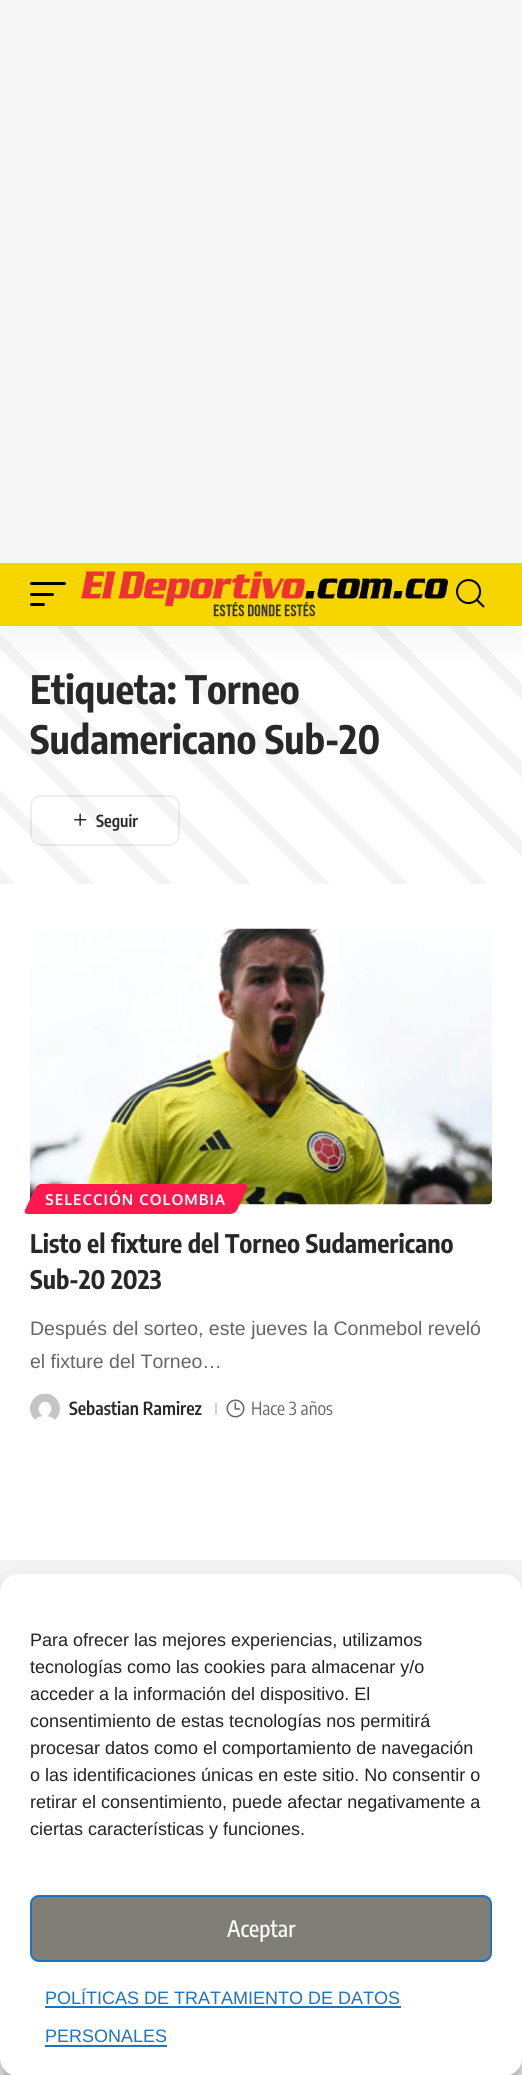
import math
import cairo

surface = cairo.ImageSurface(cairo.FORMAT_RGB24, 522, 2075)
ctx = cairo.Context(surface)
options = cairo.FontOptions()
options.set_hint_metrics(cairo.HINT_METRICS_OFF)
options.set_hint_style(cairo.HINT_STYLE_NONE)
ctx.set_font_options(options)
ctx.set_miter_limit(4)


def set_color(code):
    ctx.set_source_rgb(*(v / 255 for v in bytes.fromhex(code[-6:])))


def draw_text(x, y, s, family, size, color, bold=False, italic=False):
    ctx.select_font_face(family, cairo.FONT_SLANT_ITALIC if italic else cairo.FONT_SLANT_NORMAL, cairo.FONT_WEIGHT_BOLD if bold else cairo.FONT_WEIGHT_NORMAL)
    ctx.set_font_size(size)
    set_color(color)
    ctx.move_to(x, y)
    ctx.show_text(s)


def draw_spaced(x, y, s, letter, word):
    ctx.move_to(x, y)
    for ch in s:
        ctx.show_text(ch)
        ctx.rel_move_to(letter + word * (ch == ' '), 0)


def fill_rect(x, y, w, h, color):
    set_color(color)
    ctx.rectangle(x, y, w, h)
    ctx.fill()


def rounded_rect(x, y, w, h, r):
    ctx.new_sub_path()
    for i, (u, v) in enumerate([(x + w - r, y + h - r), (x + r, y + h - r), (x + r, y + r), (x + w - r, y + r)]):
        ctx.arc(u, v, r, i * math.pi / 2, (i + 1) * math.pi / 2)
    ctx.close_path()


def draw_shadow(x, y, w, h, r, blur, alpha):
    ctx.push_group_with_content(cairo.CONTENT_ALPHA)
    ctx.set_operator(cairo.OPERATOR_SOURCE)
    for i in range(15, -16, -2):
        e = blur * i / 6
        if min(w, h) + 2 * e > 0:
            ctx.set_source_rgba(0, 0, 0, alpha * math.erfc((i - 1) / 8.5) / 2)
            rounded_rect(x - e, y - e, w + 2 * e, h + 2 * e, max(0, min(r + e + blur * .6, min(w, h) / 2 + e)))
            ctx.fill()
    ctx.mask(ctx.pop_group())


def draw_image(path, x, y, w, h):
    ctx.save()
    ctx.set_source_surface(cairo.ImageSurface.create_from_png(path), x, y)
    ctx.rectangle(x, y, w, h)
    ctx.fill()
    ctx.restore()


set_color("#ffffff")
ctx.paint()
fill_rect(0, 0, 522, 563, "#f7f7f7")
rounded_rect(31, 796, 148, 49, 10)
set_color("#ededed")
ctx.stroke()
draw_image("assets/img3.png", 74, 813, 13, 13)
gradient = cairo.LinearGradient(66, 950, 458, 557)
gradient.add_color_stop_rgba(0, 0.157, 0.157, 0.157, 0.05)
gradient.add_color_stop_rgba(0.02, 0.157, 0.157, 0.157, 0.05)
gradient.add_color_stop_rgba(0.02, 0.157, 0.157, 0.157, 0)
gradient.add_color_stop_rgba(0.1, 0.157, 0.157, 0.157, 0)
gradient.add_color_stop_rgba(0.1, 0.157, 0.157, 0.157, 0.05)
gradient.add_color_stop_rgba(0.12, 0.157, 0.157, 0.157, 0.05)
gradient.add_color_stop_rgba(0.12, 0.157, 0.157, 0.157, 0)
gradient.add_color_stop_rgba(0.2, 0.157, 0.157, 0.157, 0)
gradient.add_color_stop_rgba(0.2, 0.157, 0.157, 0.157, 0.05)
gradient.add_color_stop_rgba(0.22, 0.157, 0.157, 0.157, 0.05)
gradient.add_color_stop_rgba(0.22, 0.157, 0.157, 0.157, 0)
gradient.add_color_stop_rgba(0.3, 0.157, 0.157, 0.157, 0)
gradient.add_color_stop_rgba(0.3, 0.157, 0.157, 0.157, 0.05)
gradient.add_color_stop_rgba(0.32, 0.157, 0.157, 0.157, 0.05)
gradient.add_color_stop_rgba(0.32, 0.157, 0.157, 0.157, 0)
gradient.add_color_stop_rgba(0.4, 0.157, 0.157, 0.157, 0)
gradient.add_color_stop_rgba(0.4, 0.157, 0.157, 0.157, 0.05)
gradient.add_color_stop_rgba(0.42, 0.157, 0.157, 0.157, 0.05)
gradient.add_color_stop_rgba(0.42, 0.157, 0.157, 0.157, 0)
gradient.add_color_stop_rgba(0.5, 0.157, 0.157, 0.157, 0)
gradient.add_color_stop_rgba(0.5, 0.157, 0.157, 0.157, 0.05)
gradient.add_color_stop_rgba(0.52, 0.157, 0.157, 0.157, 0.05)
gradient.add_color_stop_rgba(0.52, 0.157, 0.157, 0.157, 0)
gradient.add_color_stop_rgba(0.6, 0.157, 0.157, 0.157, 0)
gradient.add_color_stop_rgba(0.6, 0.157, 0.157, 0.157, 0.05)
gradient.add_color_stop_rgba(0.62, 0.157, 0.157, 0.157, 0.05)
gradient.add_color_stop_rgba(0.62, 0.157, 0.157, 0.157, 0)
gradient.add_color_stop_rgba(0.7, 0.157, 0.157, 0.157, 0)
gradient.add_color_stop_rgba(0.7, 0.157, 0.157, 0.157, 0.05)
gradient.add_color_stop_rgba(0.72, 0.157, 0.157, 0.157, 0.05)
gradient.add_color_stop_rgba(0.72, 0.157, 0.157, 0.157, 0)
gradient.add_color_stop_rgba(0.8, 0.157, 0.157, 0.157, 0)
gradient.add_color_stop_rgba(0.8, 0.157, 0.157, 0.157, 0.05)
gradient.add_color_stop_rgba(0.82, 0.157, 0.157, 0.157, 0.05)
gradient.add_color_stop_rgba(0.82, 0.157, 0.157, 0.157, 0)
gradient.add_color_stop_rgba(0.9, 0.157, 0.157, 0.157, 0)
gradient.add_color_stop_rgba(0.9, 0.157, 0.157, 0.157, 0.05)
gradient.add_color_stop_rgba(0.92, 0.157, 0.157, 0.157, 0.05)
gradient.add_color_stop_rgba(0.92, 0.157, 0.157, 0.157, 0)
gradient.add_color_stop_rgba(1, 0, 0, 0, 0)
ctx.set_source(gradient)
ctx.rectangle(0, 626, 522, 258)
ctx.fill()
ctx.save()
ctx.rectangle(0, 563, 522, 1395)
ctx.clip()
set_color("#000000")
draw_shadow(0, 569, 522, 63, 0, 22.5, 0.07)
ctx.restore()
fill_rect(0, 563, 522, 63, "#f7d600")
set_color("#000000")
rounded_rect(30, 582, 36, 3, 1.5)
ctx.fill()
rounded_rect(30, 593, 24, 3, 1.5)
ctx.fill()
rounded_rect(30, 603, 15, 3, 1.5)
ctx.fill()
draw_image("assets/img1.png", 81, 571, 367, 46)
draw_image("assets/img2.png", 456, 579, 29, 29)
draw_text(30, 704, "Etiqueta: Torneo", "Encode Sans Condensed", 39, "#282828", bold=True)
draw_text(30, 754, "Sudamericano Sub-20", "Encode Sans Condensed", 39, "#282828", bold=True)
draw_text(96, 827, "Seguir", "Encode Sans Condensed SemiBold", 16.5, "#282828")
draw_image("assets/img4.png", 30, 928, 462, 277)
set_color("#ff184e")
ctx.new_path()
ctx.move_to(41, 1184)
ctx.line_to(244, 1184)
ctx.curve_to(247, 1184, 248, 1186, 247, 1189)
ctx.line_to(237, 1210)
ctx.curve_to(236, 1212, 233, 1214, 230, 1214)
ctx.line_to(28, 1214)
ctx.curve_to(25, 1214, 24, 1212, 25, 1210)
ctx.line_to(35, 1189)
ctx.curve_to(36, 1186, 39, 1184, 41, 1184)
ctx.close_path()
ctx.fill()
ctx.select_font_face("Oxygen", cairo.FONT_SLANT_NORMAL, cairo.FONT_WEIGHT_BOLD)
ctx.set_font_size(15)
set_color("#ffffff")
draw_spaced(45, 1205, "SELECCIÓN COLOMBIA", 1, 0)
draw_text(30, 1253, "Listo el fixture del Torneo Sudamericano", "Encode Sans Condensed", 25.5, "#282828", bold=True)
draw_text(30, 1289, "Sub-20 2023", "Encode Sans Condensed", 25.5, "#282828", bold=True)
draw_text(30, 1335, "Después del sorteo, este jueves la Conmebol reveló", "Liberation Sans", 19.5, "#666666")
draw_text(30, 1368, "el fixture del Torneo…", "Liberation Sans", 19.5, "#666666")
draw_image("assets/img5.png", 30, 1393, 30, 27)
draw_text(69, 1415, "Sebastian Ramirez", "Encode Sans Condensed SemiBold", 18, "#282828")
fill_rect(215, 1403, 2, 12, "#d1d1d1")
draw_image("assets/img6.png", 226, 1399, 19, 19)
draw_text(251, 1415, "Hace 3 años", "Encode Sans Condensed", 18, "#666666")
fill_rect(0, 1560, 522, 32, "#f5f5f5")
set_color("#000000")
draw_shadow(0, 1583, 522, 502, 18, 4.5, 0.23)
draw_shadow(0, 1589, 522, 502, 18, 15, 0.19)
set_color("#ffffff")
rounded_rect(0, 1574, 522, 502, 18)
ctx.fill()
draw_text(30, 1646, "Para ofrecer las mejores experiencias, utilizamos", "Liberation Sans", 18, "#222222")
draw_text(30, 1673, "tecnologías como las cookies para almacenar y/o", "Liberation Sans", 18, "#222222")
draw_text(30, 1700, "acceder a la información del dispositivo. El", "Liberation Sans", 18, "#222222")
draw_text(30, 1727, "consentimiento de estas tecnologías nos permitirá", "Liberation Sans", 18, "#222222")
draw_text(30, 1754, "procesar datos como el comportamiento de navegación", "Liberation Sans", 18, "#222222")
draw_text(30, 1781, "o las identificaciones únicas en este sitio. No consentir o", "Liberation Sans", 18, "#222222")
draw_text(30, 1808, "retirar el consentimiento, puede afectar negativamente a", "Liberation Sans", 18, "#222222")
draw_text(30, 1835, "ciertas características y funciones.", "Liberation Sans", 18, "#222222")
set_color("#7f7f77")
rounded_rect(31, 1896, 460, 65, 8)
ctx.fill_preserve()
set_color("#1e73be")
ctx.stroke()
draw_text(227, 1937, "Aceptar", "Encode Sans Condensed Medium", 22.5, "#ffffff")
draw_text(45, 2004, "POLÍTICAS DE TRATAMIENTO DE DATOS", "Liberation Sans", 18, "#1e73be")
fill_rect(45, 2006, 356, 2, "#1e73be")
draw_text(45, 2042, "PERSONALES", "Liberation Sans", 18, "#1e73be")
fill_rect(45, 2045, 122, 2, "#1e73be")
surface.write_to_png("output.png")
